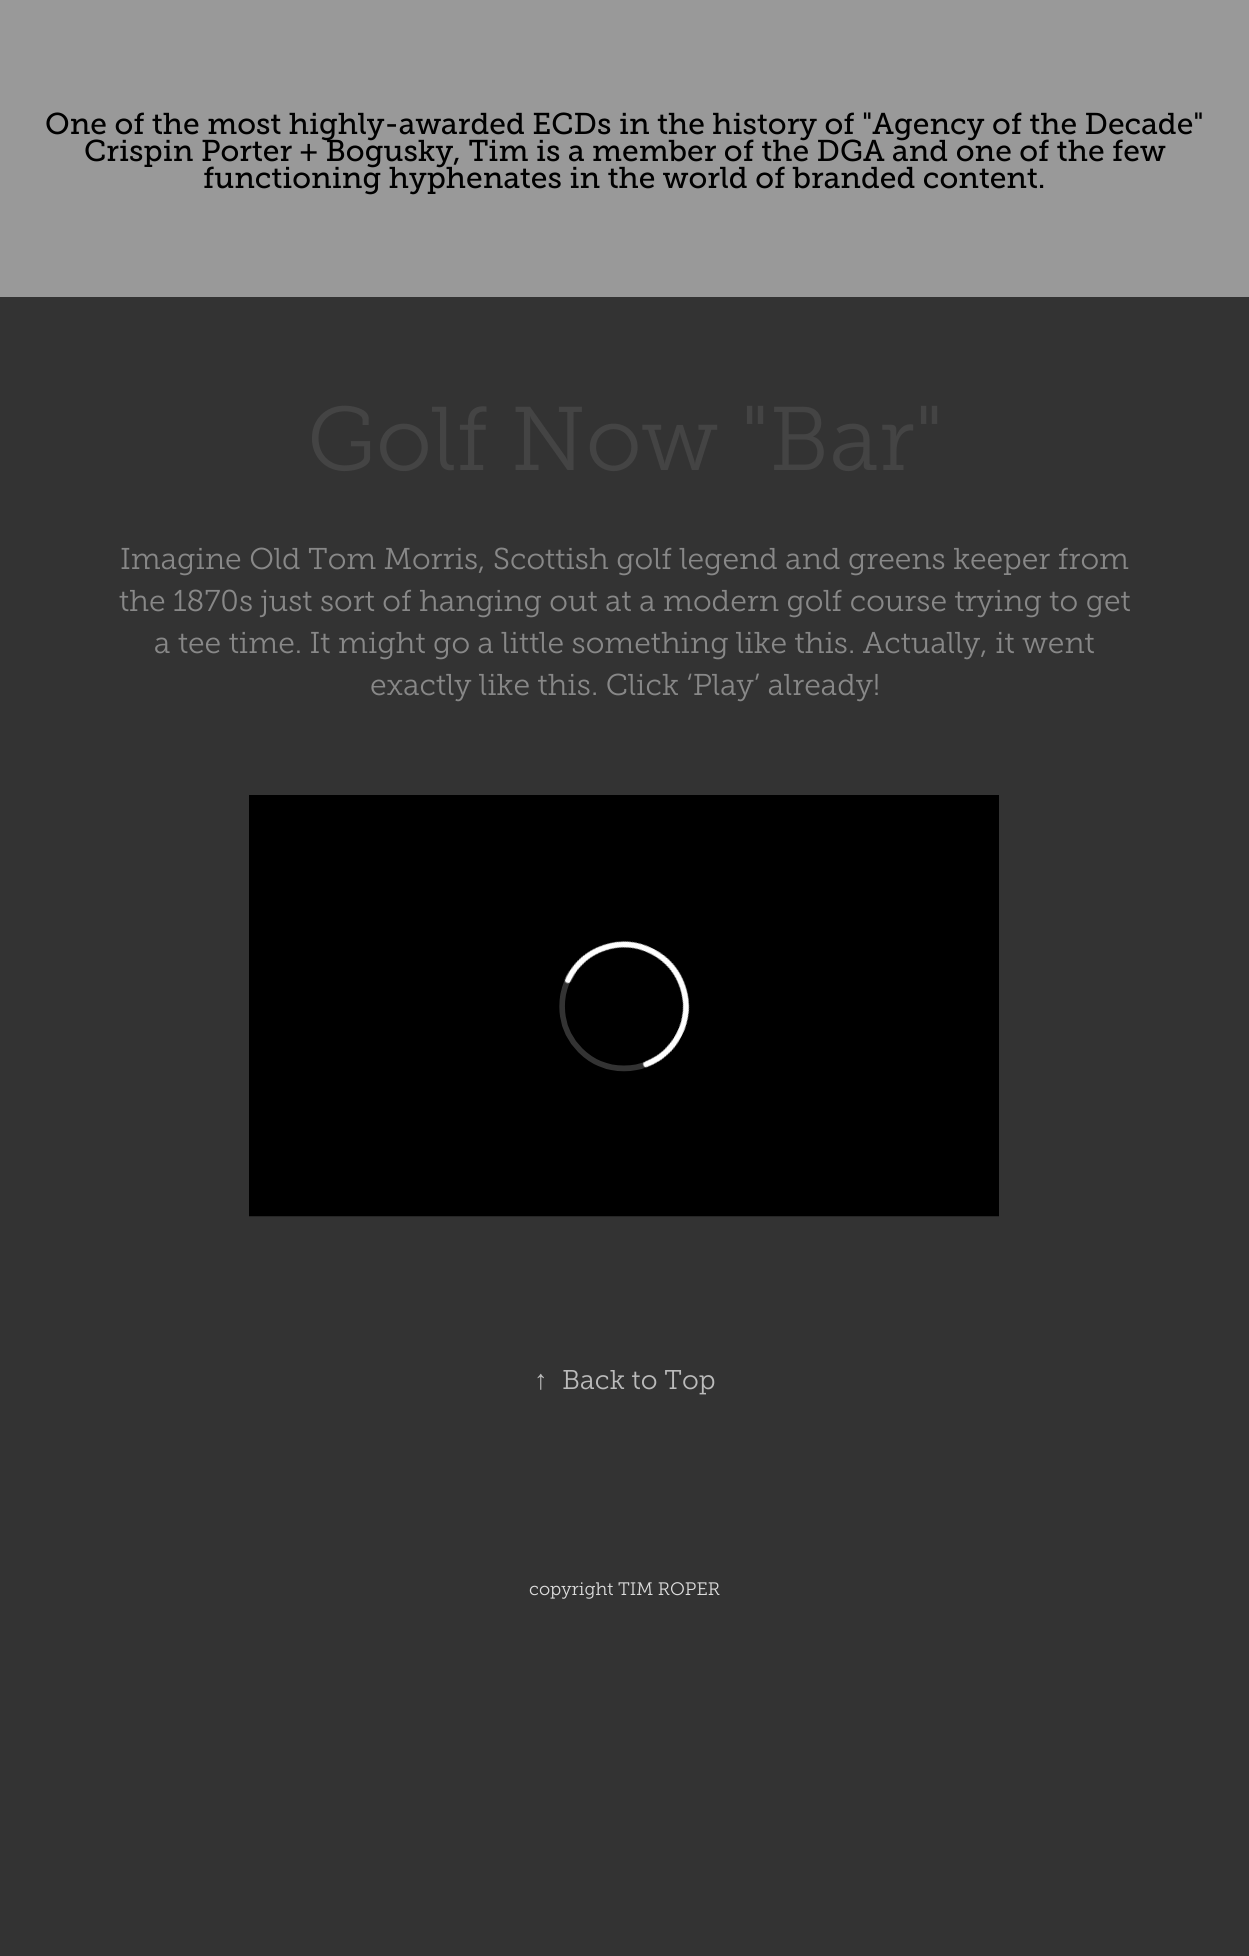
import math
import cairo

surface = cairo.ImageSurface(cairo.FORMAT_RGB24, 1249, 1956)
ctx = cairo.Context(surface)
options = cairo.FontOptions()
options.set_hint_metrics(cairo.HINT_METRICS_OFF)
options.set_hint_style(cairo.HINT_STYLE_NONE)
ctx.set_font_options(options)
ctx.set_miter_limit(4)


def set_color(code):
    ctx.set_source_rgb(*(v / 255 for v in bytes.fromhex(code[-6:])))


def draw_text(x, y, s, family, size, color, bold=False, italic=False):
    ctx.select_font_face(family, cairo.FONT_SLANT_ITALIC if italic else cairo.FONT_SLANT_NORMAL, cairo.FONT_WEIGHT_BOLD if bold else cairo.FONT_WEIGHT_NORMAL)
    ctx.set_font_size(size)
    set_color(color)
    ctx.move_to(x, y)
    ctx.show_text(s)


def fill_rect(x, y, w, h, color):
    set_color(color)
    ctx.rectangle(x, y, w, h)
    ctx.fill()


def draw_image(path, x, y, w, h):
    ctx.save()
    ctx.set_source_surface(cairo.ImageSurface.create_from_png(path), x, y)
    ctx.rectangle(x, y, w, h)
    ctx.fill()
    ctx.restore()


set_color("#333333")
ctx.paint()
fill_rect(0, 0, 1249, 297, "#999999")
draw_text(45, 134, "One of the most highly-awarded ECDs in the history of \"Agency of the Decade\"", "Museo Slab", 30, "#000000")
draw_text(84, 161, "Crispin Porter + Bogusky, Tim is a member of the DGA and one of the few", "Museo Slab", 30, "#000000")
draw_text(203, 188, "functioning hyphenates in the world of branded content.", "Museo Slab", 30, "#000000")
draw_text(307, 470, "Golf Now \"Bar\"", "Museo Slab Light", 90, "#444444")
draw_text(120, 569, "Imagine Old Tom Morris, Scottish golf legend and greens keeper from", "Museo Slab Light", 30, "#888888")
draw_text(119, 611, "the 1870s just sort of hanging out at a modern golf course trying to get", "Museo Slab Light", 30, "#888888")
draw_text(154, 653, "a tee time. It might go a little something like this. Actually, it went", "Museo Slab Light", 30, "#888888")
draw_text(370, 695, "exactly like this. Click ‘Play’ already!", "Museo Slab Light", 30, "#888888")
draw_image("assets/img1.png", 249, 795, 750, 422)
draw_text(534, 1389, "↑", "Liberation Serif", 27, "#bbbbbb")
draw_text(562, 1389, "Back to Top", "Museo Slab Light", 27, "#bbbbbb")
draw_text(529, 1595, "copyright TIM ROPER", "Museo Slab Light", 18, "#dddddd")
surface.write_to_png("output.png")
